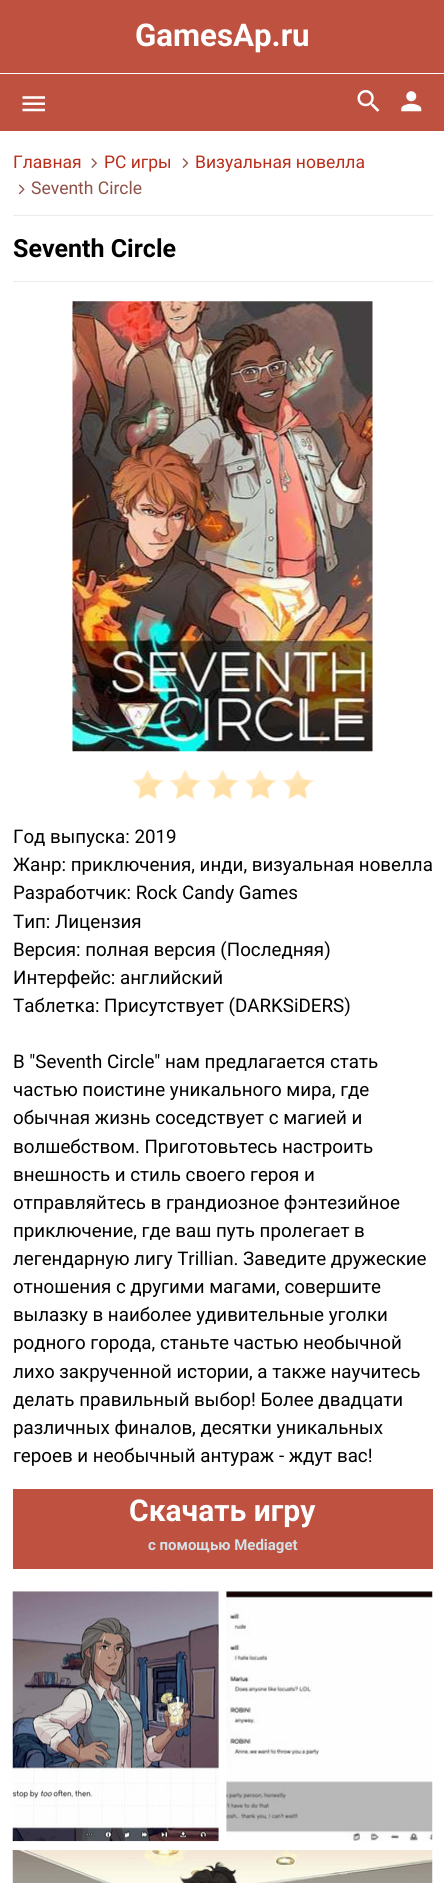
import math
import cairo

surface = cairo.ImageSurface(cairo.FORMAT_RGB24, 444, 1883)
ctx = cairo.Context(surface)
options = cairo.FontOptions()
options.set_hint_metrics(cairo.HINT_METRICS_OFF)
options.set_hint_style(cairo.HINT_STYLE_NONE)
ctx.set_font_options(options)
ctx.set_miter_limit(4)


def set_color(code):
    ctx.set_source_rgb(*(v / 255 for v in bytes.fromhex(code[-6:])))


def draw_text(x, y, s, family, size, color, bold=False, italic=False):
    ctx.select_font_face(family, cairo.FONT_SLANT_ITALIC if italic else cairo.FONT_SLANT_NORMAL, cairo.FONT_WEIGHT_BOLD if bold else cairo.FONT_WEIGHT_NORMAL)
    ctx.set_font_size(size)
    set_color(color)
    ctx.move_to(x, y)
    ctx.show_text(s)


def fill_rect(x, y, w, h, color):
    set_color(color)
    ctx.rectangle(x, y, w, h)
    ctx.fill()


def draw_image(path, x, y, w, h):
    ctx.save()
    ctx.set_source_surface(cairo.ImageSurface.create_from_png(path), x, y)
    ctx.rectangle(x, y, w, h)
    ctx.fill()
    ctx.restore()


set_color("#bf5141")
ctx.paint()
draw_text(135, 46, "GamesAp.ru", "Roboto", 31.25, "#ffffff", bold=True)
fill_rect(0, 73, 444, 1, "#ffffff")
draw_image("assets/img1.png", 22, 96, 23, 16)
draw_image("assets/img2.png", 357, 90, 23, 22)
draw_image("assets/img3.png", 401, 91, 21, 21)
fill_rect(0, 131, 444, 1752, "#ffffff")
draw_text(13, 168, "Главная", "Roboto", 17.5, "#b72e1a")
draw_image("assets/img4.png", 91, 158, 6, 10)
draw_text(104, 168, "PC игры", "Roboto", 17.5, "#b72e1a")
draw_image("assets/img5.png", 182, 158, 7, 10)
draw_text(195, 168, "Визуальная новелла", "Roboto", 17.5, "#b72e1a")
draw_image("assets/img6.png", 18, 184, 7, 11)
draw_text(31, 194, "Seventh Circle", "Roboto", 17.5, "#8e5148")
fill_rect(13, 215, 420, 1, "#ebebeb")
fill_rect(13, 281, 420, 1, "#ebebeb")
draw_text(13, 257, "Seventh Circle", "Roboto", 25, "#000000", bold=True)
draw_image("assets/img7.png", 72, 301, 301, 451)
draw_image("assets/img8.png", 132, 770, 182, 30)
draw_text(13, 843, "Год выпуска: 2019", "Roboto", 18.75, "#000000")
draw_text(13, 871, "Жанр: приключения, инди, визуальная новелла", "Roboto", 18.75, "#000000")
draw_text(13, 899, "Разработчик: Rock Candy Games", "Roboto", 18.75, "#000000")
draw_text(13, 928, "Тип: Лицензия", "Roboto", 18.75, "#000000")
draw_text(13, 956, "Версия: полная версия (Последняя)", "Roboto", 18.75, "#000000")
draw_text(13, 984, "Интерфейс: английский", "Roboto", 18.75, "#000000")
draw_text(13, 1012, "Таблетка: Присутствует (DARKSiDERS)", "Roboto", 18.75, "#000000")
draw_text(13, 1068, "В \"Seventh Circle\" нам предлагается стать", "Roboto", 18.75, "#000000")
draw_text(13, 1096, "частью поистине уникального мира, где", "Roboto", 18.75, "#000000")
draw_text(13, 1124, "обычная жизнь соседствует с магией и", "Roboto", 18.75, "#000000")
draw_text(13, 1153, "волшебством. Приготовьтесь настроить", "Roboto", 18.75, "#000000")
draw_text(13, 1181, "внешность и стиль своего героя и", "Roboto", 18.75, "#000000")
draw_text(13, 1209, "отправляйтесь в грандиозное фэнтезийное", "Roboto", 18.75, "#000000")
draw_text(13, 1237, "приключение, где ваш путь пролегает в", "Roboto", 18.75, "#000000")
draw_text(13, 1265, "легендарную лигу Trillian. Заведите дружеские", "Roboto", 18.75, "#000000")
draw_text(13, 1293, "отношения с другими магами, совершите", "Roboto", 18.75, "#000000")
draw_text(13, 1321, "вылазку в наиболее удивительные уголки", "Roboto", 18.75, "#000000")
draw_text(13, 1349, "родного города, станьте частью необычной", "Roboto", 18.75, "#000000")
draw_text(13, 1378, "лихо закрученной истории, а также научитесь", "Roboto", 18.75, "#000000")
draw_text(13, 1406, "делать правильный выбор! Более двадцати", "Roboto", 18.75, "#000000")
draw_text(13, 1434, "различных финалов, десятки уникальных", "Roboto", 18.75, "#000000")
draw_text(13, 1462, "героев и необычный антураж - ждут вас!", "Roboto", 18.75, "#000000")
fill_rect(13, 1489, 420, 80, "#bf5141")
draw_text(129, 1521, "Скачать игру", "Roboto", 30, "#ffffff", bold=True)
draw_text(148, 1550, "с помощью Mediaget", "Roboto", 15, "#d4e1e6", bold=True)
draw_image("assets/img9.png", 12, 1591, 207, 251)
draw_image("assets/img10.png", 226, 1591, 207, 250)
draw_image("assets/img11.png", 12, 1850, 421, 33)
surface.write_to_png("output.png")
